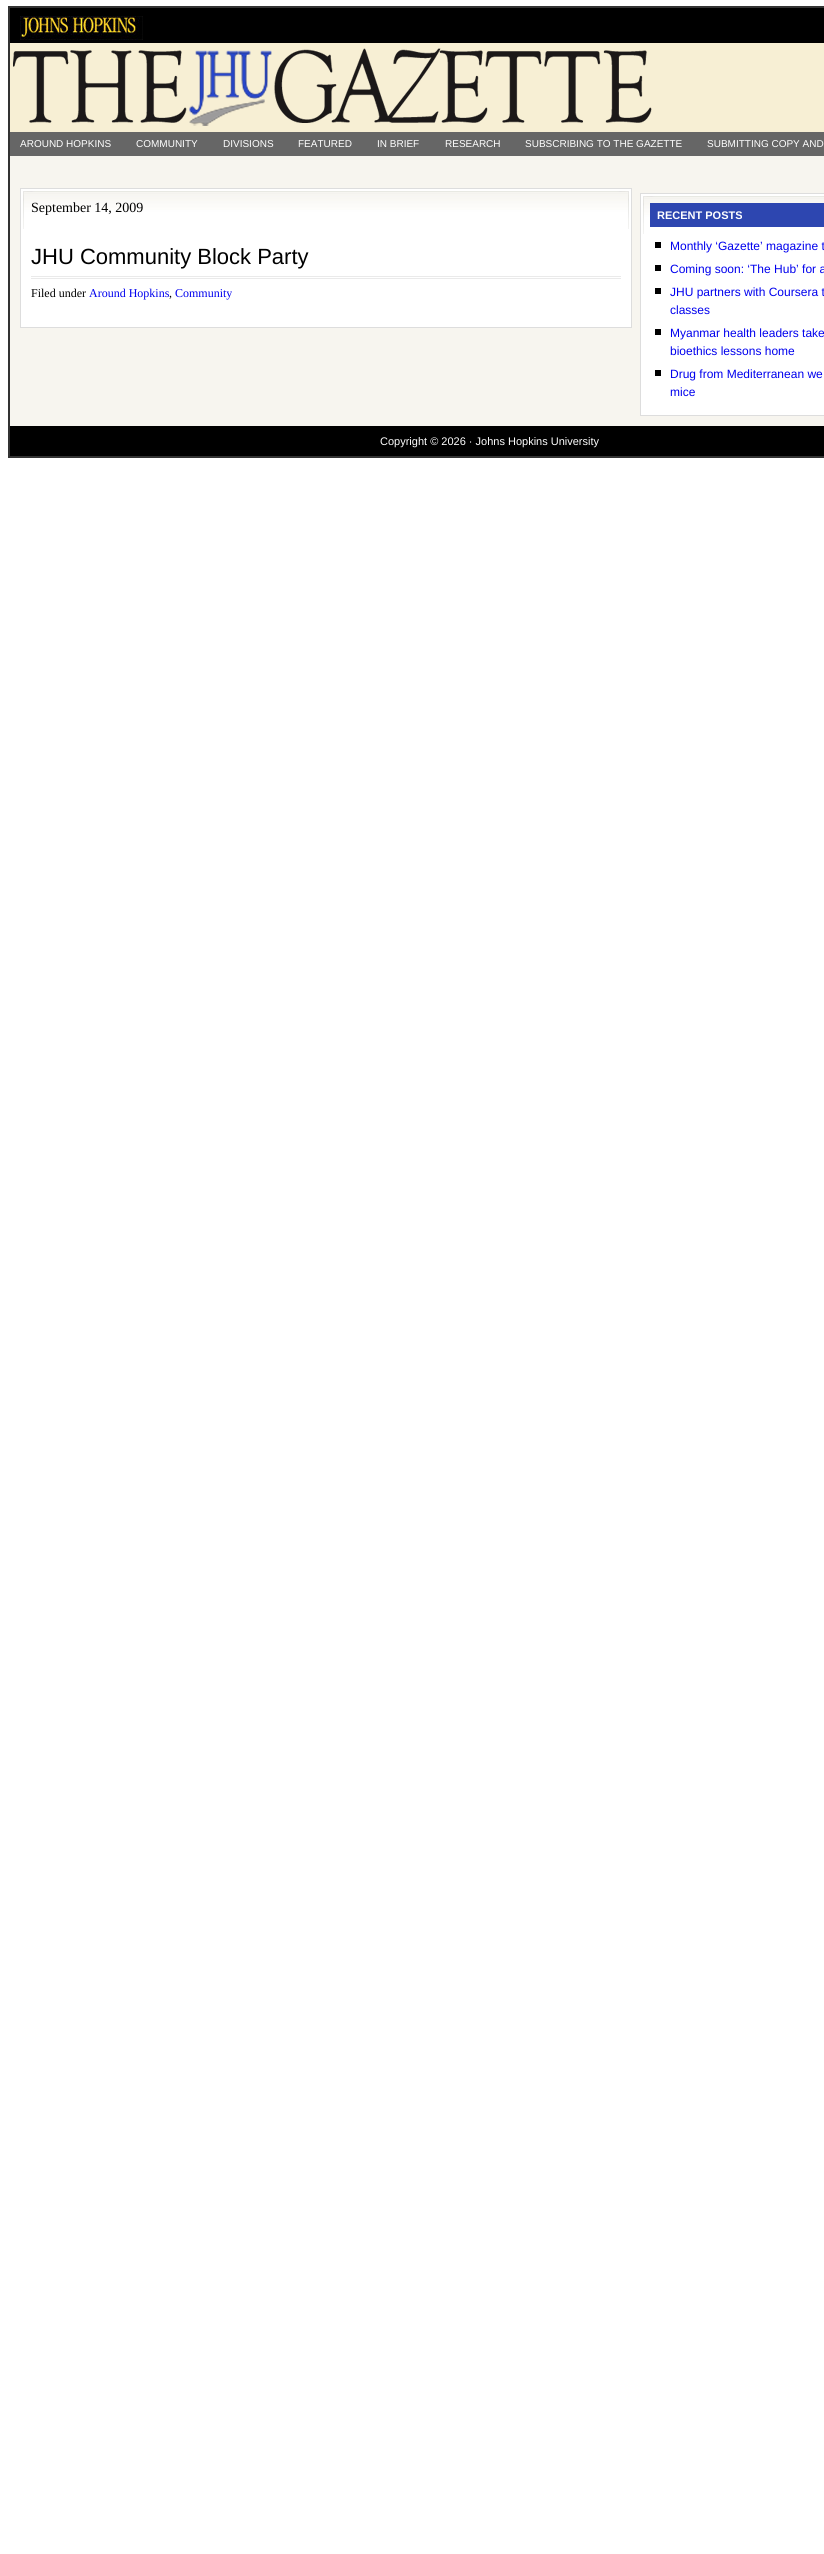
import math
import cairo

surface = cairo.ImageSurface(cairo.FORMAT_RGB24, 824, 2554)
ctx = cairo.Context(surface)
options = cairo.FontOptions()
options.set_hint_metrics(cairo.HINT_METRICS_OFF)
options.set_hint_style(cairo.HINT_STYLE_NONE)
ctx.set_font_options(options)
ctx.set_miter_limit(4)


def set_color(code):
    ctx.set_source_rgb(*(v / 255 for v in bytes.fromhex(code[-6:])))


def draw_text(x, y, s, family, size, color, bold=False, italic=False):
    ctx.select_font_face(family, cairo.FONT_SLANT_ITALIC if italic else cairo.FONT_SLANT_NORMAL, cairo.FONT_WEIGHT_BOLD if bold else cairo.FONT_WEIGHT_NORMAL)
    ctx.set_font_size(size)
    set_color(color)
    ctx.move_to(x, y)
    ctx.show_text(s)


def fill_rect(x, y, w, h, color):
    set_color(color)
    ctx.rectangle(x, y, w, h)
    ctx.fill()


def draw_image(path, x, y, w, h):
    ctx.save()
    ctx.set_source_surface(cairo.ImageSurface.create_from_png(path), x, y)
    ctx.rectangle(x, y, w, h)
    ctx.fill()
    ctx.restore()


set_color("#ffffff")
ctx.paint()
fill_rect(10, 156, 814, 270, "#f7f5ef")
ctx.rectangle(9, 7, 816, 450)
set_color("#333333")
ctx.stroke()
fill_rect(10, 8, 814, 35, "#000000")
draw_image("assets/img1.png", 20, 16, 123, 24)
fill_rect(10, 43, 814, 89, "#f7efd4")
draw_image("assets/img2.png", 13, 48, 639, 78)
fill_rect(10, 132, 814, 24, "#666666")
draw_text(20, 147, "AROUND HOPKINS", "Liberation Sans", 10, "#ffffff")
draw_text(136, 147, "COMMUNITY", "Liberation Sans", 10, "#ffffff")
draw_text(223, 147, "DIVISIONS", "Liberation Sans", 10, "#ffffff")
draw_text(298, 147, "FEATURED", "Liberation Sans", 10, "#ffffff")
draw_text(377, 147, "IN BRIEF", "Liberation Sans", 10, "#ffffff")
draw_text(445, 147, "RESEARCH", "Liberation Sans", 10, "#ffffff")
draw_text(525, 147, "SUBSCRIBING TO THE GAZETTE", "Liberation Sans", 10, "#ffffff")
draw_text(707, 147, "SUBMITTING COPY AND", "Liberation Sans", 10, "#ffffff")
fill_rect(21, 189, 610, 138, "#ffffff")
draw_image("assets/img3.png", 23, 191, 606, 38)
ctx.rectangle(20.5, 188.5, 611, 139)
set_color("#dddddd")
ctx.set_line_width(1)
ctx.stroke()
draw_text(31, 212, "September 14, 2009", "Liberation Serif", 14, "#000000")
draw_text(31, 264, "JHU Community Block Party", "Liberation Sans", 22, "#000000")
fill_rect(31, 276, 590, 1, "#eaeaea")
fill_rect(31, 278, 590, 1, "#eaeaea")
draw_text(31, 297, "Filed under", "Liberation Serif", 12, "#000000")
draw_text(89, 297, "Around Hopkins", "Liberation Serif", 12, "#0000ee")
draw_text(169, 297, ",", "Liberation Serif", 12, "#000000")
draw_text(175, 297, "Community", "Liberation Serif", 12, "#0000ee")
fill_rect(641, 194, 183, 221, "#ffffff")
draw_image("assets/img4.png", 643, 196, 181, 38)
ctx.rectangle(640.5, 193.5, 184, 222)
set_color("#dddddd")
ctx.stroke()
fill_rect(650, 203, 174, 24, "#2d46b0")
draw_text(657, 219, "RECENT POSTS", "Liberation Sans", 11, "#ffffff", bold=True)
fill_rect(655, 242, 6, 6, "#000000")
draw_text(670, 250, "Monthly ‘Gazette’ magazine t", "Liberation Sans", 12, "#0000ee")
fill_rect(655, 265, 6, 6, "#000000")
draw_text(670, 273, "Coming soon: ‘The Hub’ for a", "Liberation Sans", 12, "#0000ee")
fill_rect(655, 288, 6, 6, "#000000")
draw_text(670, 296, "JHU partners with Coursera t", "Liberation Sans", 12, "#0000ee")
draw_text(670, 314, "classes", "Liberation Sans", 12, "#0000ee")
fill_rect(655, 329, 6, 6, "#000000")
draw_text(670, 337, "Myanmar health leaders take", "Liberation Sans", 12, "#0000ee")
draw_text(670, 355, "bioethics lessons home", "Liberation Sans", 12, "#0000ee")
fill_rect(655, 370, 6, 6, "#000000")
draw_text(670, 378, "Drug from Mediterranean we", "Liberation Sans", 12, "#0000ee")
draw_text(670, 396, "mice", "Liberation Sans", 12, "#0000ee")
fill_rect(10, 426, 814, 30, "#000000")
draw_text(380, 445, "Copyright © 2026 · Johns Hopkins University", "Liberation Sans", 11, "#ffffff")
surface.write_to_png("output.png")
